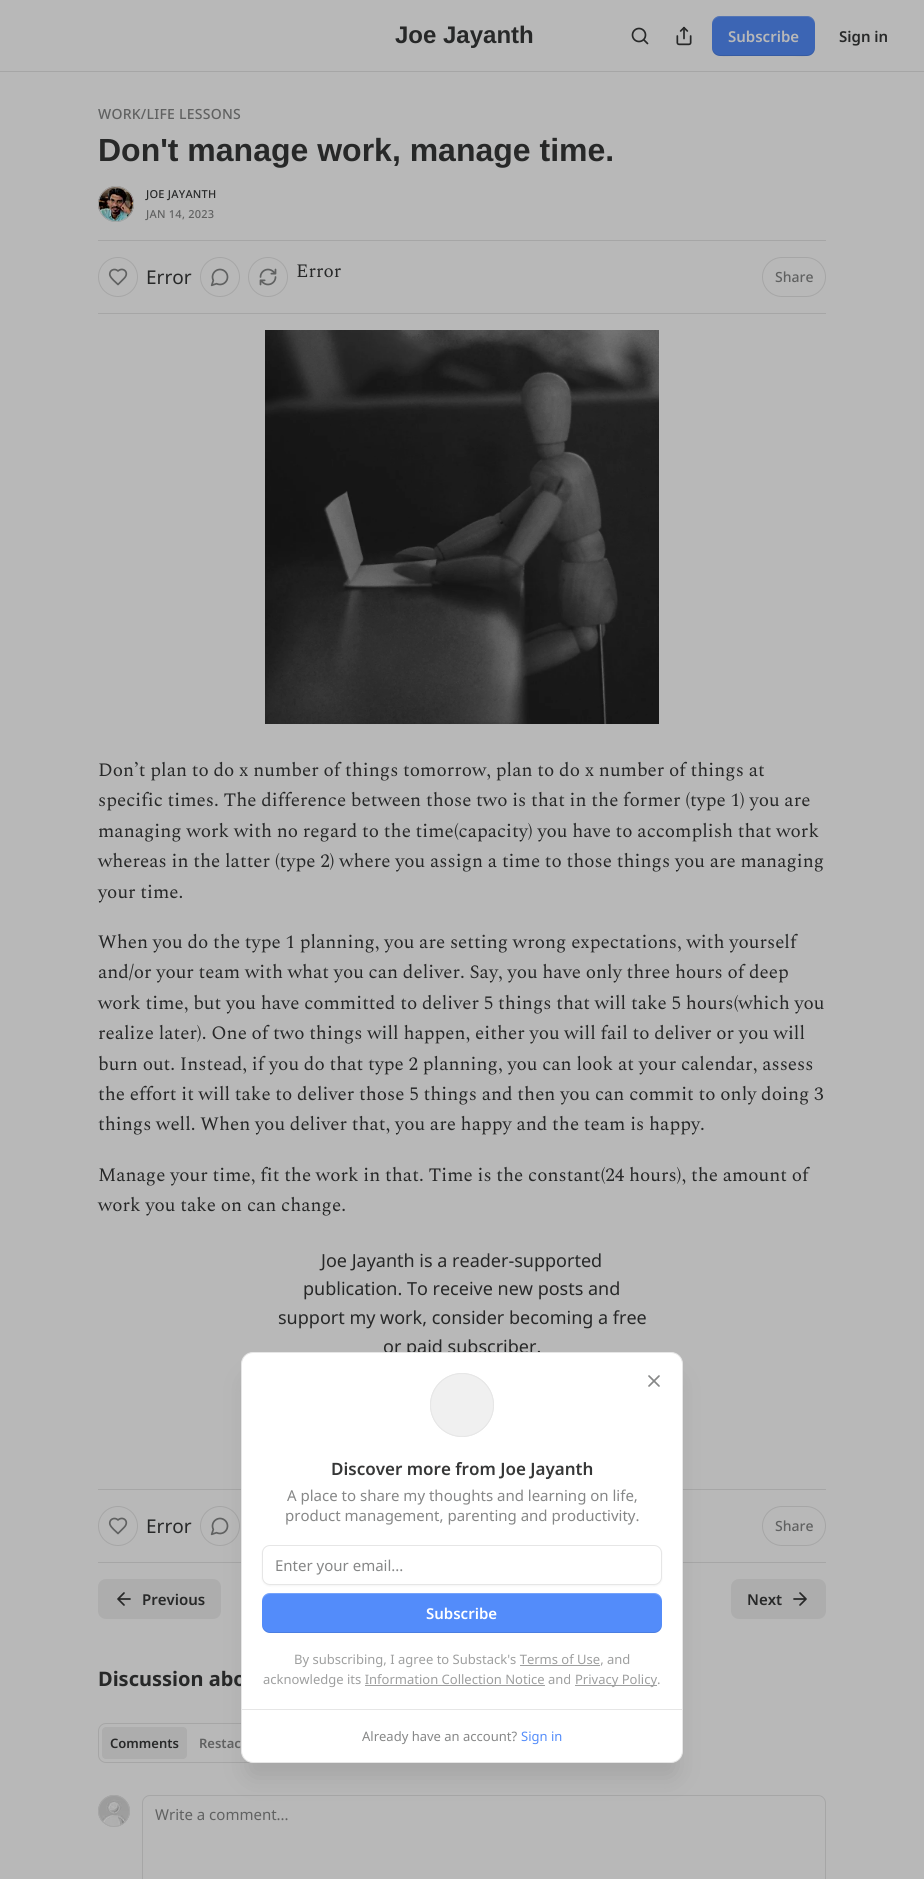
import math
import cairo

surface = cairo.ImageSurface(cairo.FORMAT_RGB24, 924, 1879)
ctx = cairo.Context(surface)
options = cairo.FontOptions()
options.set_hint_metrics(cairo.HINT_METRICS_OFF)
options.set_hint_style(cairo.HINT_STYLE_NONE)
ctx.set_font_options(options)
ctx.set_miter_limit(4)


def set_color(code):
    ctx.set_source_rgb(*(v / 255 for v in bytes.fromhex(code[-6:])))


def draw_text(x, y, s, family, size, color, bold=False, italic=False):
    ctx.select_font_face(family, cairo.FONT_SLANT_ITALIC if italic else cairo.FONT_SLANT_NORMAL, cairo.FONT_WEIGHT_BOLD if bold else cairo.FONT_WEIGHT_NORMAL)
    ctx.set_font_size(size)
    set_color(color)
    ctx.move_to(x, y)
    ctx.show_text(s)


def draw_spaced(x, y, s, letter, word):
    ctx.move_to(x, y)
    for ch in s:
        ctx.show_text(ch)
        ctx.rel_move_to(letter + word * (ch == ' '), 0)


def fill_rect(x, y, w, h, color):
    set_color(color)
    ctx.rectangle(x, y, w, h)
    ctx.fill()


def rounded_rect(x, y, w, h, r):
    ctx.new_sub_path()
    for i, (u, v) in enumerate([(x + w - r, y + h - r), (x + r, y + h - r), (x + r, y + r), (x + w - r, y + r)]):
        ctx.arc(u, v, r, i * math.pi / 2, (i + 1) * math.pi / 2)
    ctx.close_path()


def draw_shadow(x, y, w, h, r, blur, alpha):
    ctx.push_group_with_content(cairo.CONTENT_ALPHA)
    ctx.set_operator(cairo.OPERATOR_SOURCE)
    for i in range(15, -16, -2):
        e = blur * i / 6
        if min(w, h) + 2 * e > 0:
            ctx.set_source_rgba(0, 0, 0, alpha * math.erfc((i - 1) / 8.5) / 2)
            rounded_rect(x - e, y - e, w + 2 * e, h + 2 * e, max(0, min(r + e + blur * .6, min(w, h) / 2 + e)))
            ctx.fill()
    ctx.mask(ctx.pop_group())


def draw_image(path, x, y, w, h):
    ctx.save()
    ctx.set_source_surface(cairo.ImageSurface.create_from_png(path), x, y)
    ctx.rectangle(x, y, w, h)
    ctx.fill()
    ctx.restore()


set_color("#b8b8b8")
ctx.paint()
fill_rect(0, 71, 924, 1, "#a6a6a6")
draw_text(395, 43, "Joe Jayanth", "Liberation Sans", 24, "#272828", bold=True)
ctx.new_path()
ctx.arc(639, 35, 6.5, 0, 2 * math.pi)
ctx.set_line_width(1.7)
ctx.stroke()
ctx.new_path()
ctx.move_to(647.5, 43.5)
ctx.line_to(644, 40)
ctx.set_line_cap(cairo.LINE_CAP_ROUND)
ctx.set_line_join(cairo.LINE_JOIN_ROUND)
ctx.stroke()
draw_image("assets/img1.png", 676, 26, 16, 20)
set_color("#3c65b4")
rounded_rect(712, 16, 103, 40, 8)
ctx.fill()
ctx.set_source_rgba(0, 0, 0, 0.1)
ctx.new_path()
ctx.move_to(712, 47)
ctx.curve_to(712, 59, 726, 56, 734, 56)
ctx.line_to(792, 56)
ctx.curve_to(801, 56, 815, 59, 815, 47)
ctx.curve_to(815, 51, 811, 55, 807, 55)
ctx.line_to(720, 55)
ctx.curve_to(716, 55, 712, 51, 712, 47)
ctx.close_path()
ctx.fill()
ctx.set_source_rgba(0.722, 0.722, 0.722, 0.2)
ctx.new_path()
ctx.move_to(720, 17)
ctx.line_to(807, 17)
ctx.curve_to(811, 17, 815, 21, 815, 25)
ctx.curve_to(815, 13, 801, 16, 792, 16)
ctx.line_to(734, 16)
ctx.curve_to(726, 16, 712, 13, 712, 25)
ctx.curve_to(712, 21, 716, 17, 720, 17)
ctx.close_path()
ctx.fill()
draw_text(728, 42, "Subscribe", "Noto Sans SemiBold", 15, "#b8b8b8")
draw_text(839, 42, "Sign in", "Noto Sans SemiBold", 15, "#272828")
ctx.select_font_face("Noto Sans Medium")
ctx.set_font_size(14)
set_color("#606161")
draw_spaced(98, 119, "WORK/LIFE LESSONS", 0.25, 0)
draw_text(98, 161, "Don't manage work, manage time.", "Liberation Sans", 32, "#272828", bold=True)
ctx.new_path()
ctx.arc(116, 204, 17.5, 0, 2 * math.pi)
set_color("#a6a6a6")
ctx.set_line_width(1)
ctx.set_line_cap(cairo.LINE_CAP_BUTT)
ctx.set_line_join(cairo.LINE_JOIN_MITER)
ctx.stroke()
draw_image("assets/img2.png", 98, 186, 36, 36)
ctx.arc(116, 204, 17.5, 0, 2 * math.pi)
ctx.stroke()
ctx.select_font_face("Noto Sans Medium")
ctx.set_font_size(11)
set_color("#272828")
draw_spaced(146, 198, "JOE JAYANTH", 0.25, 0)
set_color("#606161")
draw_spaced(146, 218, "JAN 14, 2023", 0.25, 0)
fill_rect(98, 240, 728, 1, "#a6a6a6")
fill_rect(98, 313, 728, 1, "#a6a6a6")
ctx.new_path()
ctx.arc(118, 277, 19.5, 0, 2 * math.pi)
ctx.stroke()
ctx.new_path()
ctx.move_to(124, 278.5)
ctx.curve_to(130, 272.5, 123, 266.5, 118, 271)
ctx.curve_to(114.5, 267.5, 108.5, 270.5, 110, 275.5)
ctx.curve_to(111, 278.5, 116, 282.5, 118, 284.5)
ctx.close_path()
set_color("#606161")
ctx.set_line_width(1.7)
ctx.set_line_cap(cairo.LINE_CAP_ROUND)
ctx.set_line_join(cairo.LINE_JOIN_ROUND)
ctx.stroke()
draw_text(146, 284, "Error", "Noto Sans", 19, "#272828")
ctx.new_path()
ctx.arc(220, 277, 19.5, 0, 2 * math.pi)
set_color("#a6a6a6")
ctx.set_line_width(1)
ctx.set_line_cap(cairo.LINE_CAP_BUTT)
ctx.set_line_join(cairo.LINE_JOIN_MITER)
ctx.stroke()
draw_image("assets/img3.png", 210, 268, 19, 19)
ctx.arc(268, 277, 19.5, 0, 2 * math.pi)
ctx.stroke()
draw_image("assets/img4.png", 259, 268, 18, 18)
draw_text(296, 277, "Error", "Spectral", 19, "#272828")
rounded_rect(762.5, 257.5, 63, 39, 19.5)
set_color("#a6a6a6")
ctx.stroke()
draw_text(775, 282, "Share", "Noto Sans Medium", 14, "#606161")
draw_image("assets/img5.png", 265, 330, 394, 394)
draw_text(98, 776, "Don’t plan to do x number of things tomorrow, plan to do x number of things at", "Spectral", 19, "#272828")
draw_text(98, 806, "specific times. The difference between those two is that in the former (type 1) you are", "Spectral", 19, "#272828")
draw_text(98, 837, "managing work with no regard to the time(capacity) you have to accomplish that work", "Spectral", 19, "#272828")
draw_text(98, 867, "whereas in the latter (type 2) where you assign a time to those things you are managing", "Spectral", 19, "#272828")
draw_text(98, 898, "your time.", "Spectral", 19, "#272828")
draw_text(98, 948, "When you do the type 1 planning, you are setting wrong expectations, with yourself", "Spectral", 19, "#272828")
draw_text(98, 978, "and/or your team with what you can deliver. Say, you have only three hours of deep", "Spectral", 19, "#272828")
draw_text(98, 1009, "work time, but you have committed to deliver 5 things that will take 5 hours(which you", "Spectral", 19, "#272828")
draw_text(98, 1039, "realize later). One of two things will happen, either you will fail to deliver or you will", "Spectral", 19, "#272828")
draw_text(98, 1070, "burn out. Instead, if you do that type 2 planning, you can look at your calendar, assess", "Spectral", 19, "#272828")
draw_text(98, 1100, "the effort it will take to deliver those 5 things and then you can commit to only doing 3", "Spectral", 19, "#272828")
draw_text(98, 1130, "things well. When you deliver that, you are happy and the team is happy.", "Spectral", 19, "#272828")
draw_text(98, 1181, "Manage your time, fit the work in that. Time is the constant(24 hours), the amount of", "Spectral", 19, "#272828")
draw_text(98, 1211, "work you take on can change.", "Spectral", 19, "#272828")
draw_text(321, 1267, "Joe Jayanth is a reader-supported", "Noto Sans", 18, "#272828")
draw_text(303, 1295, "publication. To receive new posts and", "Noto Sans", 18, "#272828")
draw_text(278, 1324, "support my work, consider becoming a free", "Noto Sans", 18, "#272828")
draw_text(383, 1353, "or paid subscriber.", "Noto Sans", 18, "#272828")
fill_rect(98, 1489, 728, 1, "#a6a6a6")
fill_rect(98, 1562, 728, 1, "#a6a6a6")
ctx.new_path()
ctx.arc(118, 1526, 19.5, 0, 2 * math.pi)
ctx.stroke()
ctx.new_path()
ctx.move_to(124, 1527.5)
ctx.curve_to(130, 1521.5, 123, 1515.5, 118, 1520)
ctx.curve_to(114.5, 1516.5, 108.5, 1519.5, 110, 1524.5)
ctx.curve_to(111, 1527.5, 116, 1531.5, 118, 1533.5)
ctx.close_path()
set_color("#606161")
ctx.set_line_width(1.7)
ctx.set_line_cap(cairo.LINE_CAP_ROUND)
ctx.set_line_join(cairo.LINE_JOIN_ROUND)
ctx.stroke()
draw_text(146, 1533, "Error", "Noto Sans", 19, "#272828")
ctx.new_path()
ctx.arc(220, 1526, 19.5, 0, 2 * math.pi)
set_color("#a6a6a6")
ctx.set_line_width(1)
ctx.set_line_cap(cairo.LINE_CAP_BUTT)
ctx.set_line_join(cairo.LINE_JOIN_MITER)
ctx.stroke()
draw_image("assets/img3.png", 210, 1517, 19, 19)
rounded_rect(762.5, 1506.5, 63, 39, 19.5)
ctx.stroke()
draw_text(775, 1531, "Share", "Noto Sans Medium", 14, "#606161")
set_color("#adadad")
rounded_rect(98, 1579, 123, 40, 8)
ctx.fill()
ctx.new_path()
ctx.move_to(124, 1605)
ctx.line_to(118, 1599)
ctx.line_to(124, 1593)
ctx.move_to(130, 1599)
ctx.line_to(118, 1599)
set_color("#272828")
ctx.set_line_width(1.7)
ctx.set_line_cap(cairo.LINE_CAP_ROUND)
ctx.set_line_join(cairo.LINE_JOIN_ROUND)
ctx.stroke()
draw_text(142, 1605, "Previous", "Noto Sans SemiBold", 15, "#272828")
set_color("#adadad")
rounded_rect(731, 1579, 95, 40, 8)
ctx.fill()
draw_text(747, 1605, "Next", "Noto Sans SemiBold", 15, "#272828")
ctx.new_path()
ctx.move_to(794, 1599)
ctx.line_to(806, 1599)
ctx.move_to(800, 1593)
ctx.line_to(806, 1599)
ctx.line_to(800, 1605)
ctx.stroke()
rounded_rect(98.5, 1723.5, 168, 39, 7.5)
set_color("#a6a6a6")
ctx.set_line_width(1)
ctx.set_line_cap(cairo.LINE_CAP_BUTT)
ctx.set_line_join(cairo.LINE_JOIN_MITER)
ctx.stroke()
rounded_rect(142.5, 1795.5, 683, 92, 7.5)
ctx.stroke()
set_color("#000000")
draw_shadow(246, 1377, 432, 401, 7, 12.5, 0.1)
draw_text(98, 1686, "Discussion abo", "Noto Sans", 20, "#272828", bold=True)
set_color("#ffffff")
rounded_rect(241.5, 1352.5, 441, 410, 11.5)
ctx.fill_preserve()
set_color("#e6e6e6")
ctx.stroke()
ctx.arc(462, 1405, 31.5, 0, 2 * math.pi)
ctx.stroke()
set_color("#f0f0f0")
ctx.arc(462, 1405, 31.5, 0, 2 * math.pi)
ctx.fill_preserve()
set_color("#e6e6e6")
ctx.stroke()
ctx.new_path()
ctx.move_to(659, 1376)
ctx.line_to(649, 1386)
ctx.move_to(649, 1376)
ctx.line_to(659, 1386)
set_color("#868787")
ctx.set_line_width(1.7)
ctx.set_line_cap(cairo.LINE_CAP_ROUND)
ctx.set_line_join(cairo.LINE_JOIN_ROUND)
ctx.stroke()
draw_text(331, 1475, "Discover more from Joe Jayanth", "Noto Sans SemiBold", 17, "#363737")
draw_text(287, 1501, "A place to share my thoughts and learning on life,", "Noto Sans", 15, "#868787")
draw_text(285, 1521, "product management, parenting and productivity.", "Noto Sans", 15, "#868787")
set_color("#000000")
draw_shadow(262, 1546, 400, 40, 8, 1, 0.05)
set_color("#ffffff")
rounded_rect(262.5, 1545.5, 399, 39, 7.5)
ctx.fill_preserve()
set_color("#e6e6e6")
ctx.set_line_width(1)
ctx.set_line_cap(cairo.LINE_CAP_BUTT)
ctx.set_line_join(cairo.LINE_JOIN_MITER)
ctx.stroke()
draw_text(275, 1571, "Enter your email...", "Noto Sans", 15, "#868787")
set_color("#538cfa")
rounded_rect(262, 1593, 400, 40, 8)
ctx.fill()
ctx.set_source_rgba(0, 0, 0, 0.1)
ctx.new_path()
ctx.move_to(262, 1624)
ctx.line_to(262, 1625)
ctx.curve_to(262, 1629, 266, 1633, 270, 1633)
ctx.line_to(654, 1633)
ctx.curve_to(658, 1633, 662, 1629, 662, 1625)
ctx.line_to(662, 1624)
ctx.curve_to(662, 1628, 658, 1632, 654, 1632)
ctx.line_to(270, 1632)
ctx.curve_to(266, 1632, 262, 1628, 262, 1624)
ctx.close_path()
ctx.fill()
ctx.set_source_rgba(1, 1, 1, 0.2)
ctx.new_path()
ctx.move_to(270, 1594)
ctx.line_to(654, 1594)
ctx.curve_to(658, 1594, 662, 1598, 662, 1602)
ctx.line_to(662, 1601)
ctx.curve_to(662, 1597, 658, 1593, 654, 1593)
ctx.line_to(270, 1593)
ctx.curve_to(266, 1593, 262, 1597, 262, 1601)
ctx.line_to(262, 1602)
ctx.curve_to(262, 1598, 266, 1594, 270, 1594)
ctx.close_path()
ctx.fill()
draw_text(426, 1619, "Subscribe", "Noto Sans SemiBold", 15, "#ffffff")
draw_text(294, 1664, "By subscribing, I agree to Substack's Terms of Use, and", "Noto Sans", 13, "#9e9f9f")
fill_rect(520, 1665, 80, 1, "#9e9f9f")
draw_text(263, 1684, "acknowledge its Information Collection Notice and", "Noto Sans", 13, "#9e9f9f")
fill_rect(575, 1685, 82, 1, "#9e9f9f")
draw_text(575, 1684, "Privacy Policy.", "Noto Sans", 13, "#9e9f9f")
fill_rect(365, 1685, 180, 1, "#9e9f9f")
fill_rect(242, 1709, 440, 1, "#e6e6e6")
draw_text(362, 1741, "Already have an account?", "Noto Sans", 13, "#868787")
draw_text(521, 1741, "Sign in", "Noto Sans", 13, "#538cfa")
set_color("#adadad")
rounded_rect(102, 1727, 85, 32, 4)
ctx.fill()
draw_text(110, 1748, "Comments", "Noto Sans SemiBold", 13, "#272828")
draw_text(199, 1748, "Restac", "Noto Sans SemiBold", 13, "#606161")
ctx.new_path()
ctx.arc(114, 1811, 15.5, 0, 2 * math.pi)
set_color("#a6a6a6")
ctx.stroke()
draw_image("assets/img6.png", 98, 1795, 32, 32)
ctx.arc(114, 1811, 15.5, 0, 2 * math.pi)
ctx.stroke()
draw_text(155, 1820, "Write a comment...", "Noto Sans", 15, "#606161")
surface.write_to_png("output.png")
